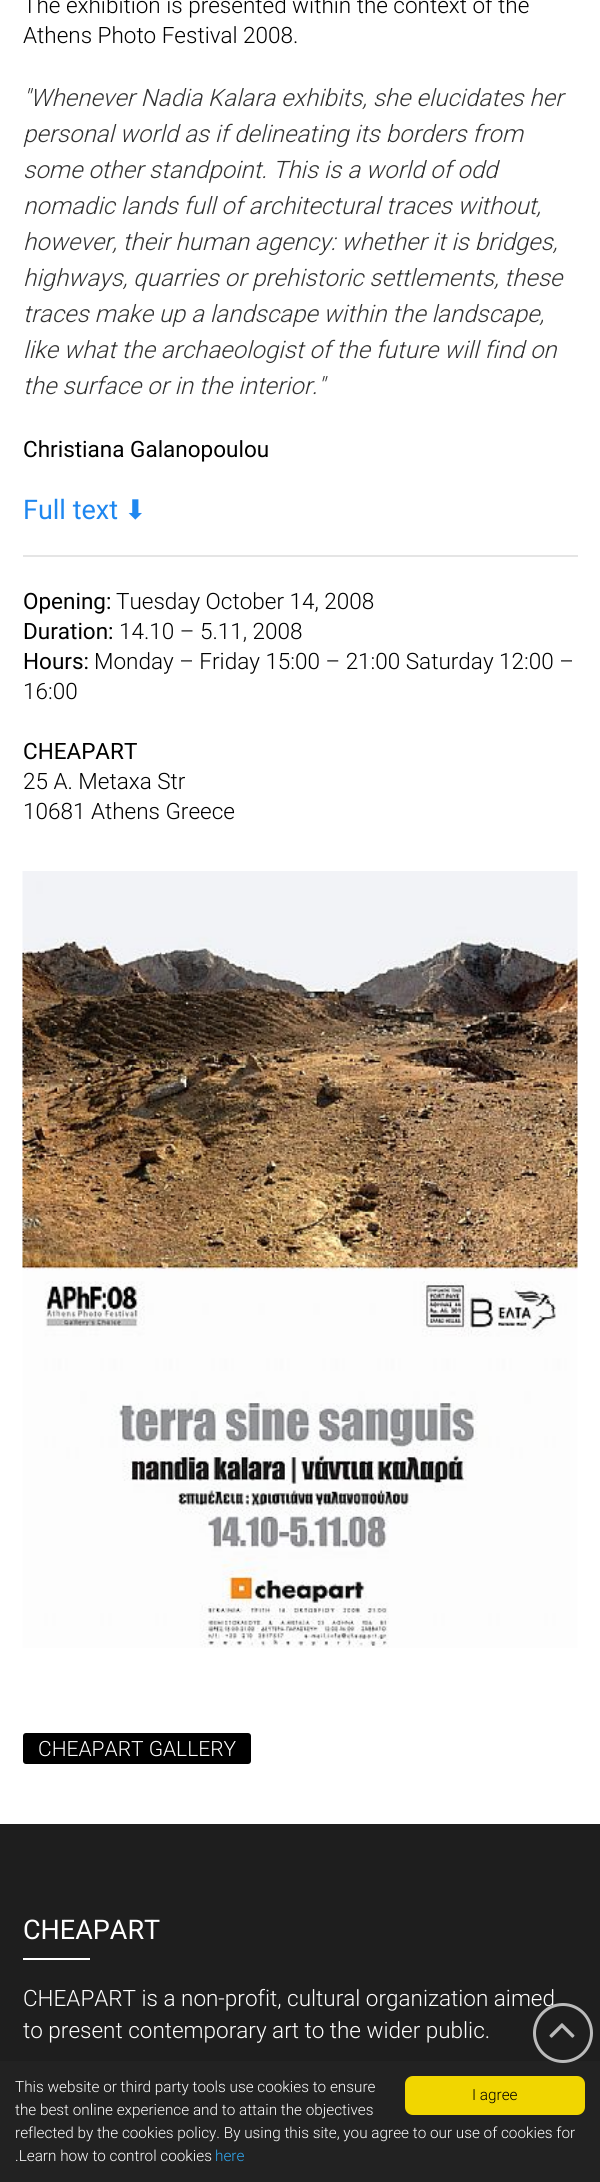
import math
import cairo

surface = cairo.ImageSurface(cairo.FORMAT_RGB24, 600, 2182)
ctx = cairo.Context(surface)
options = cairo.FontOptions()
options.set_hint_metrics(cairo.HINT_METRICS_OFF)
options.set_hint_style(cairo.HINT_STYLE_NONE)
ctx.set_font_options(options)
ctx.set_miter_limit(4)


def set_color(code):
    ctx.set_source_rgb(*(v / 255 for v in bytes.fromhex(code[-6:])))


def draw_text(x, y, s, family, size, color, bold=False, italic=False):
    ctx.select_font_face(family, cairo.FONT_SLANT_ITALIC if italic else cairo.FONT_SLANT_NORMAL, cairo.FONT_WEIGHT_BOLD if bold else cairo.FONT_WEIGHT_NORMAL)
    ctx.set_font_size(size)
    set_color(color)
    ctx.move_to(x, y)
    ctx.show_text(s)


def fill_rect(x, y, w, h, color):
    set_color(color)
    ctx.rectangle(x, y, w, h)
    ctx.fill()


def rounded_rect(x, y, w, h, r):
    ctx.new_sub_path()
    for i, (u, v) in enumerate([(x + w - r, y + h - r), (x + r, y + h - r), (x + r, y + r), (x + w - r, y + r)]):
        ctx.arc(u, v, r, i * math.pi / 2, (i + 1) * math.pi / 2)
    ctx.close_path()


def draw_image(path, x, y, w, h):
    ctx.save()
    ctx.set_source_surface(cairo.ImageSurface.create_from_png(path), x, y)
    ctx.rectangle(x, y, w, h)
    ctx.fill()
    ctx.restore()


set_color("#ffffff")
ctx.paint()
draw_text(23, 13, "The exhibition is presented within the context of the", "Roboto Light", 22.5, "#000000")
draw_text(23, 43, "Athens Photo Festival 2008.", "Roboto Light", 22.5, "#000000")
draw_text(23, 106, "\"Whenever Nadia Kalara exhibits, she elucidates her", "Roboto Light", 24, "#333333", italic=True)
draw_text(23, 142, "personal world as if delineating its borders from", "Roboto Light", 24, "#333333", italic=True)
draw_text(23, 178, "some other standpoint. This is a world of odd", "Roboto Light", 24, "#333333", italic=True)
draw_text(23, 214, "nomadic lands full of architectural traces without,", "Roboto Light", 24, "#333333", italic=True)
draw_text(23, 250, "however, their human agency: whether it is bridges,", "Roboto Light", 24, "#333333", italic=True)
draw_text(23, 286, "highways, quarries or prehistoric settlements, these", "Roboto Light", 24, "#333333", italic=True)
draw_text(23, 322, "traces make up a landscape within the landscape,", "Roboto Light", 24, "#333333", italic=True)
draw_text(23, 358, "like what the archaeologist of the future will find on", "Roboto Light", 24, "#333333", italic=True)
draw_text(23, 394, "the surface or in the interior.\"", "Roboto Light", 24, "#333333", italic=True)
draw_text(23, 457, "Christiana Galanopoulou", "Roboto", 22.5, "#000000")
draw_text(23, 519, "Full text", "Roboto", 27, "#1e87f0")
draw_text(124, 519, "⬇", "DejaVu Sans", 27, "#1e87f0")
fill_rect(23, 555, 555, 2, "#e5e5e5")
draw_text(23, 609, "Opening:", "Roboto", 22.5, "#000000")
draw_text(116, 609, "Tuesday October 14, 2008", "Roboto Light", 22.5, "#000000")
draw_text(23, 639, "Duration:", "Roboto", 22.5, "#000000")
draw_text(119, 639, "14.10 – 5.11, 2008", "Roboto Light", 22.5, "#000000")
draw_text(23, 669, "Hours:", "Roboto", 22.5, "#000000")
draw_text(94, 669, "Monday – Friday 15:00 – 21:00 Saturday 12:00 –", "Roboto Light", 22.5, "#000000")
draw_text(23, 699, "16:00", "Roboto Light", 22.5, "#000000")
draw_text(23, 759, "CHEAPART", "Roboto", 22.5, "#000000")
draw_text(23, 789, "25 A. Metaxa Str", "Roboto Light", 22.5, "#000000")
draw_text(23, 819, "10681 Athens Greece", "Roboto Light", 22.5, "#000000")
draw_image("assets/img1.png", 22, 871, 556, 777)
rounded_rect(23, 1733, 228, 31, 3)
ctx.fill()
draw_text(38, 1756, "CHEAPART GALLERY", "Roboto Light", 21, "#ffffff")
fill_rect(0, 1824, 600, 237, "#1e1e1e")
draw_text(23, 1939, "CHEAPART", "Roboto", 27, "#ffffff")
fill_rect(23, 1958, 67, 2, "#ffffff")
draw_text(23, 2006, "CHEAPART is a non-profit, cultural organization aimed", "Roboto Light", 22.5, "#ffffff")
draw_text(23, 2038, "to present contemporary art to the wider public.", "Roboto Light", 22.5, "#ffffff")
fill_rect(0, 2061, 600, 121, "#222222")
ctx.new_path()
ctx.arc(563, 2033, 28.5, 0, 2 * math.pi)
set_color("#bbbbbb")
ctx.set_line_width(3)
ctx.stroke()
draw_image("assets/img2.png", 549, 2023, 26, 15)
draw_text(15, 2092, "This website or third party tools use cookies to ensure", "Roboto Light", 15.3, "#ffffff")
draw_text(15, 2115, "the best online experience and to attain the objectives", "Roboto Light", 15.3, "#ffffff")
draw_text(15, 2138, "reflected by the cookies policy. By using this site, you agree to our use of cookies for", "Roboto Light", 15.3, "#ffffff")
draw_text(15, 2161, ".Learn how to control cookies", "Roboto Light", 15.3, "#ffffff")
draw_text(215, 2161, "here", "Roboto Light", 15.3, "#31a8f0")
set_color("#f1d600")
rounded_rect(405, 2076, 180, 39, 8)
ctx.fill()
draw_text(472, 2100, "I agree", "Roboto Light", 15.3, "#000000")
surface.write_to_png("output.png")
